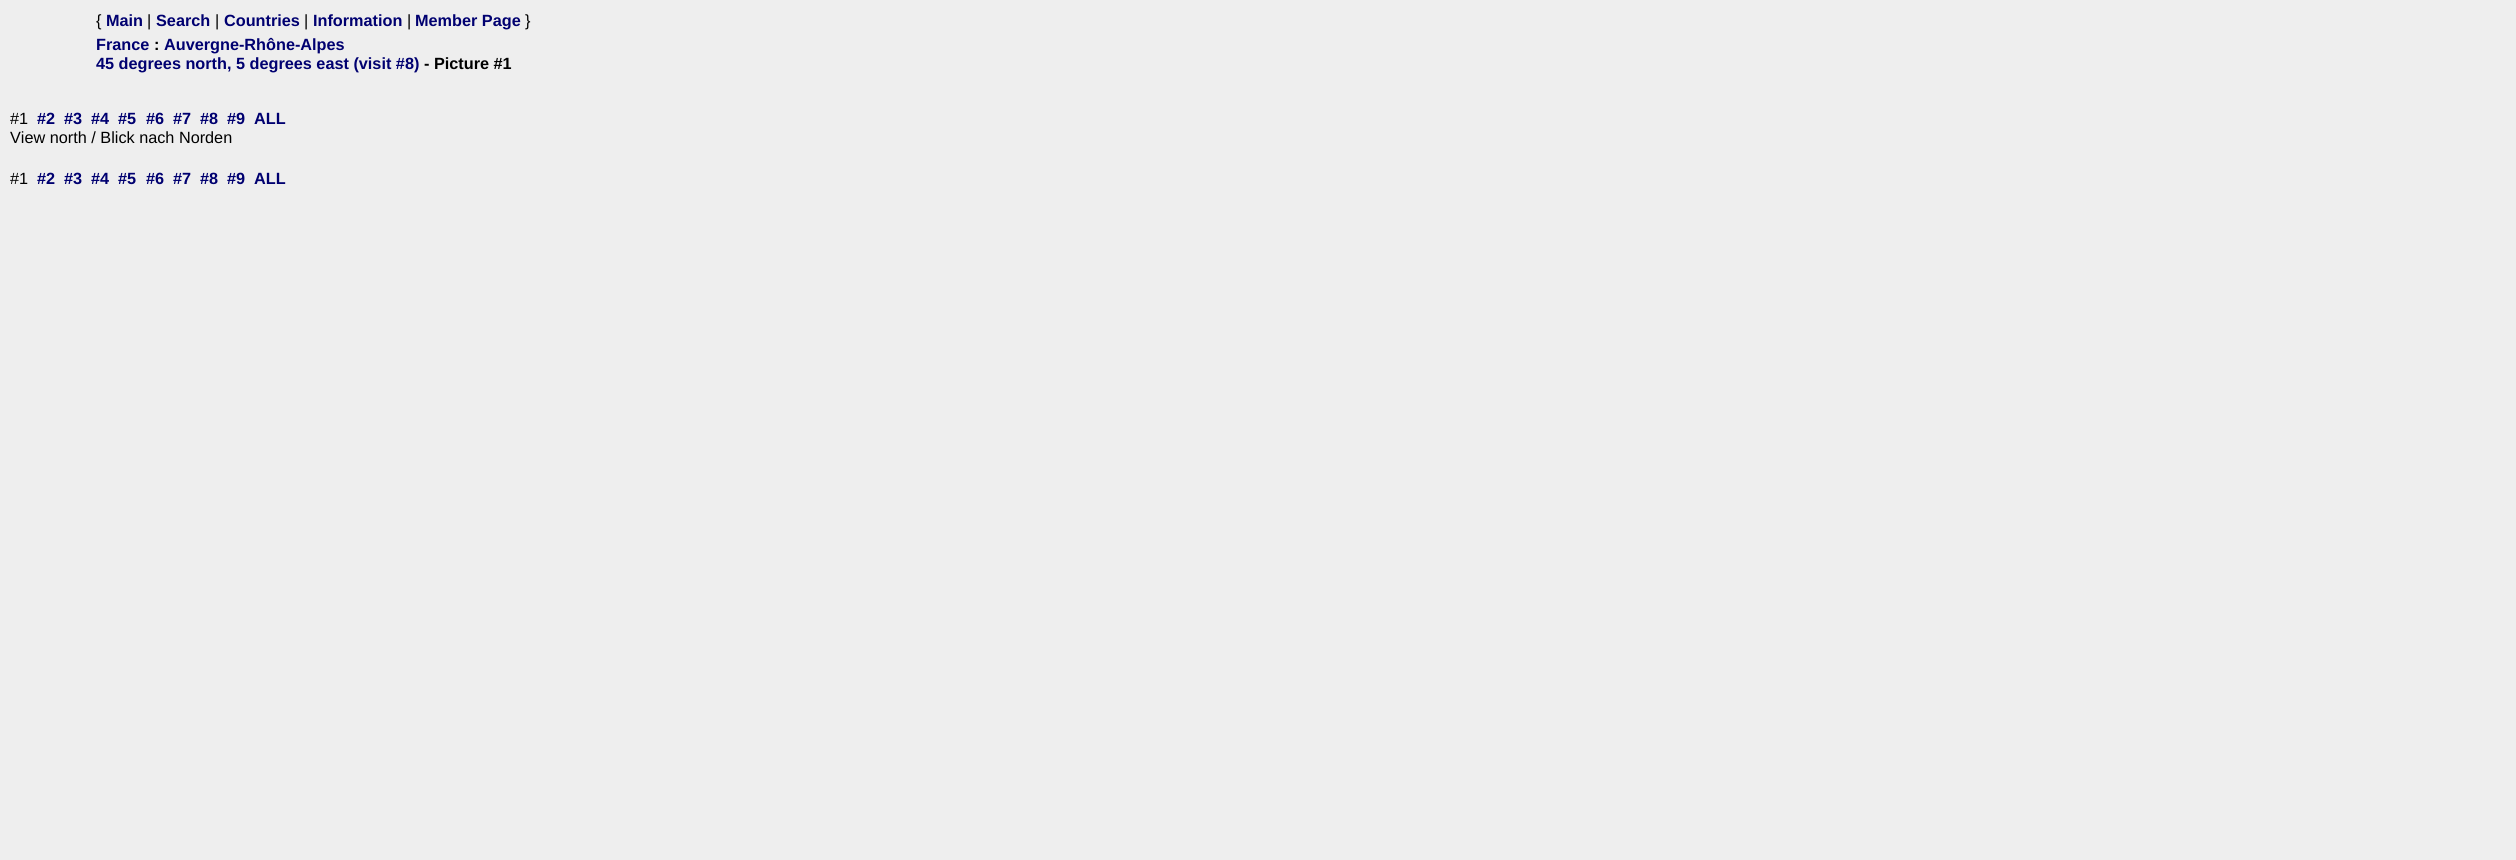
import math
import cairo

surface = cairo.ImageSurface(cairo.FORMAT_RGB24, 2516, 860)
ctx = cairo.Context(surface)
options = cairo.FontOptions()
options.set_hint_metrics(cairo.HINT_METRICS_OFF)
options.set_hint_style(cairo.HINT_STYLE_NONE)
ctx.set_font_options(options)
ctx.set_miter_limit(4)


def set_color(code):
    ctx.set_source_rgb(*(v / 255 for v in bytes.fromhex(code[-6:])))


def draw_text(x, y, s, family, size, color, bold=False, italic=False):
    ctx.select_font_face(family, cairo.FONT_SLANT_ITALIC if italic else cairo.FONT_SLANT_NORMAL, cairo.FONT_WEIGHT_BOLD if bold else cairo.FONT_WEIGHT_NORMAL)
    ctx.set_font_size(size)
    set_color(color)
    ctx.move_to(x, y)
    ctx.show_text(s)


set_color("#eeeeee")
ctx.paint()
draw_text(96, 26, "{", "Liberation Sans", 16.25, "#000000")
draw_text(106, 26, "Main", "Liberation Sans", 16.25, "#000070", bold=True)
draw_text(147, 26, "|", "Liberation Sans", 16.25, "#000000")
draw_text(156, 26, "Search", "Liberation Sans", 16.25, "#000070", bold=True)
draw_text(215, 26, "|", "Liberation Sans", 16.25, "#000000")
draw_text(224, 26, "Countries", "Liberation Sans", 16.25, "#000070", bold=True)
draw_text(304, 26, "|", "Liberation Sans", 16.25, "#000000")
draw_text(313, 26, "Information", "Liberation Sans", 16.25, "#000070", bold=True)
draw_text(407, 26, "|", "Liberation Sans", 16.25, "#000000")
draw_text(415, 26, "Member Page", "Liberation Sans", 16.25, "#000070", bold=True)
draw_text(525, 26, "}", "Liberation Sans", 16.25, "#000000")
draw_text(96, 50, "France", "Liberation Sans", 16.25, "#000070", bold=True)
draw_text(154, 50, ":", "Liberation Sans", 16.25, "#000000", bold=True)
draw_text(164, 50, "Auvergne-Rhône-Alpes", "Liberation Sans", 16.25, "#000070", bold=True)
draw_text(96, 69, "45 degrees north, 5 degrees east (visit #8)", "Liberation Sans", 16.25, "#000070", bold=True)
draw_text(424, 69, "- Picture #1", "Liberation Sans", 16.25, "#000000", bold=True)
draw_text(10, 124, "#1", "Liberation Sans", 16.25, "#000000")
draw_text(37, 124, "#2", "Liberation Sans", 16.25, "#000070", bold=True)
draw_text(64, 124, "#3", "Liberation Sans", 16.25, "#000070", bold=True)
draw_text(91, 124, "#4", "Liberation Sans", 16.25, "#000070", bold=True)
draw_text(118, 124, "#5", "Liberation Sans", 16.25, "#000070", bold=True)
draw_text(146, 124, "#6", "Liberation Sans", 16.25, "#000070", bold=True)
draw_text(173, 124, "#7", "Liberation Sans", 16.25, "#000070", bold=True)
draw_text(200, 124, "#8", "Liberation Sans", 16.25, "#000070", bold=True)
draw_text(227, 124, "#9", "Liberation Sans", 16.25, "#000070", bold=True)
draw_text(254, 124, "ALL", "Liberation Sans", 16.25, "#000070", bold=True)
draw_text(10, 143, "View north / Blick nach Norden", "Liberation Sans", 16.25, "#000000")
draw_text(10, 184, "#1", "Liberation Sans", 16.25, "#000000")
draw_text(37, 184, "#2", "Liberation Sans", 16.25, "#000070", bold=True)
draw_text(64, 184, "#3", "Liberation Sans", 16.25, "#000070", bold=True)
draw_text(91, 184, "#4", "Liberation Sans", 16.25, "#000070", bold=True)
draw_text(118, 184, "#5", "Liberation Sans", 16.25, "#000070", bold=True)
draw_text(146, 184, "#6", "Liberation Sans", 16.25, "#000070", bold=True)
draw_text(173, 184, "#7", "Liberation Sans", 16.25, "#000070", bold=True)
draw_text(200, 184, "#8", "Liberation Sans", 16.25, "#000070", bold=True)
draw_text(227, 184, "#9", "Liberation Sans", 16.25, "#000070", bold=True)
draw_text(254, 184, "ALL", "Liberation Sans", 16.25, "#000070", bold=True)
surface.write_to_png("output.png")
